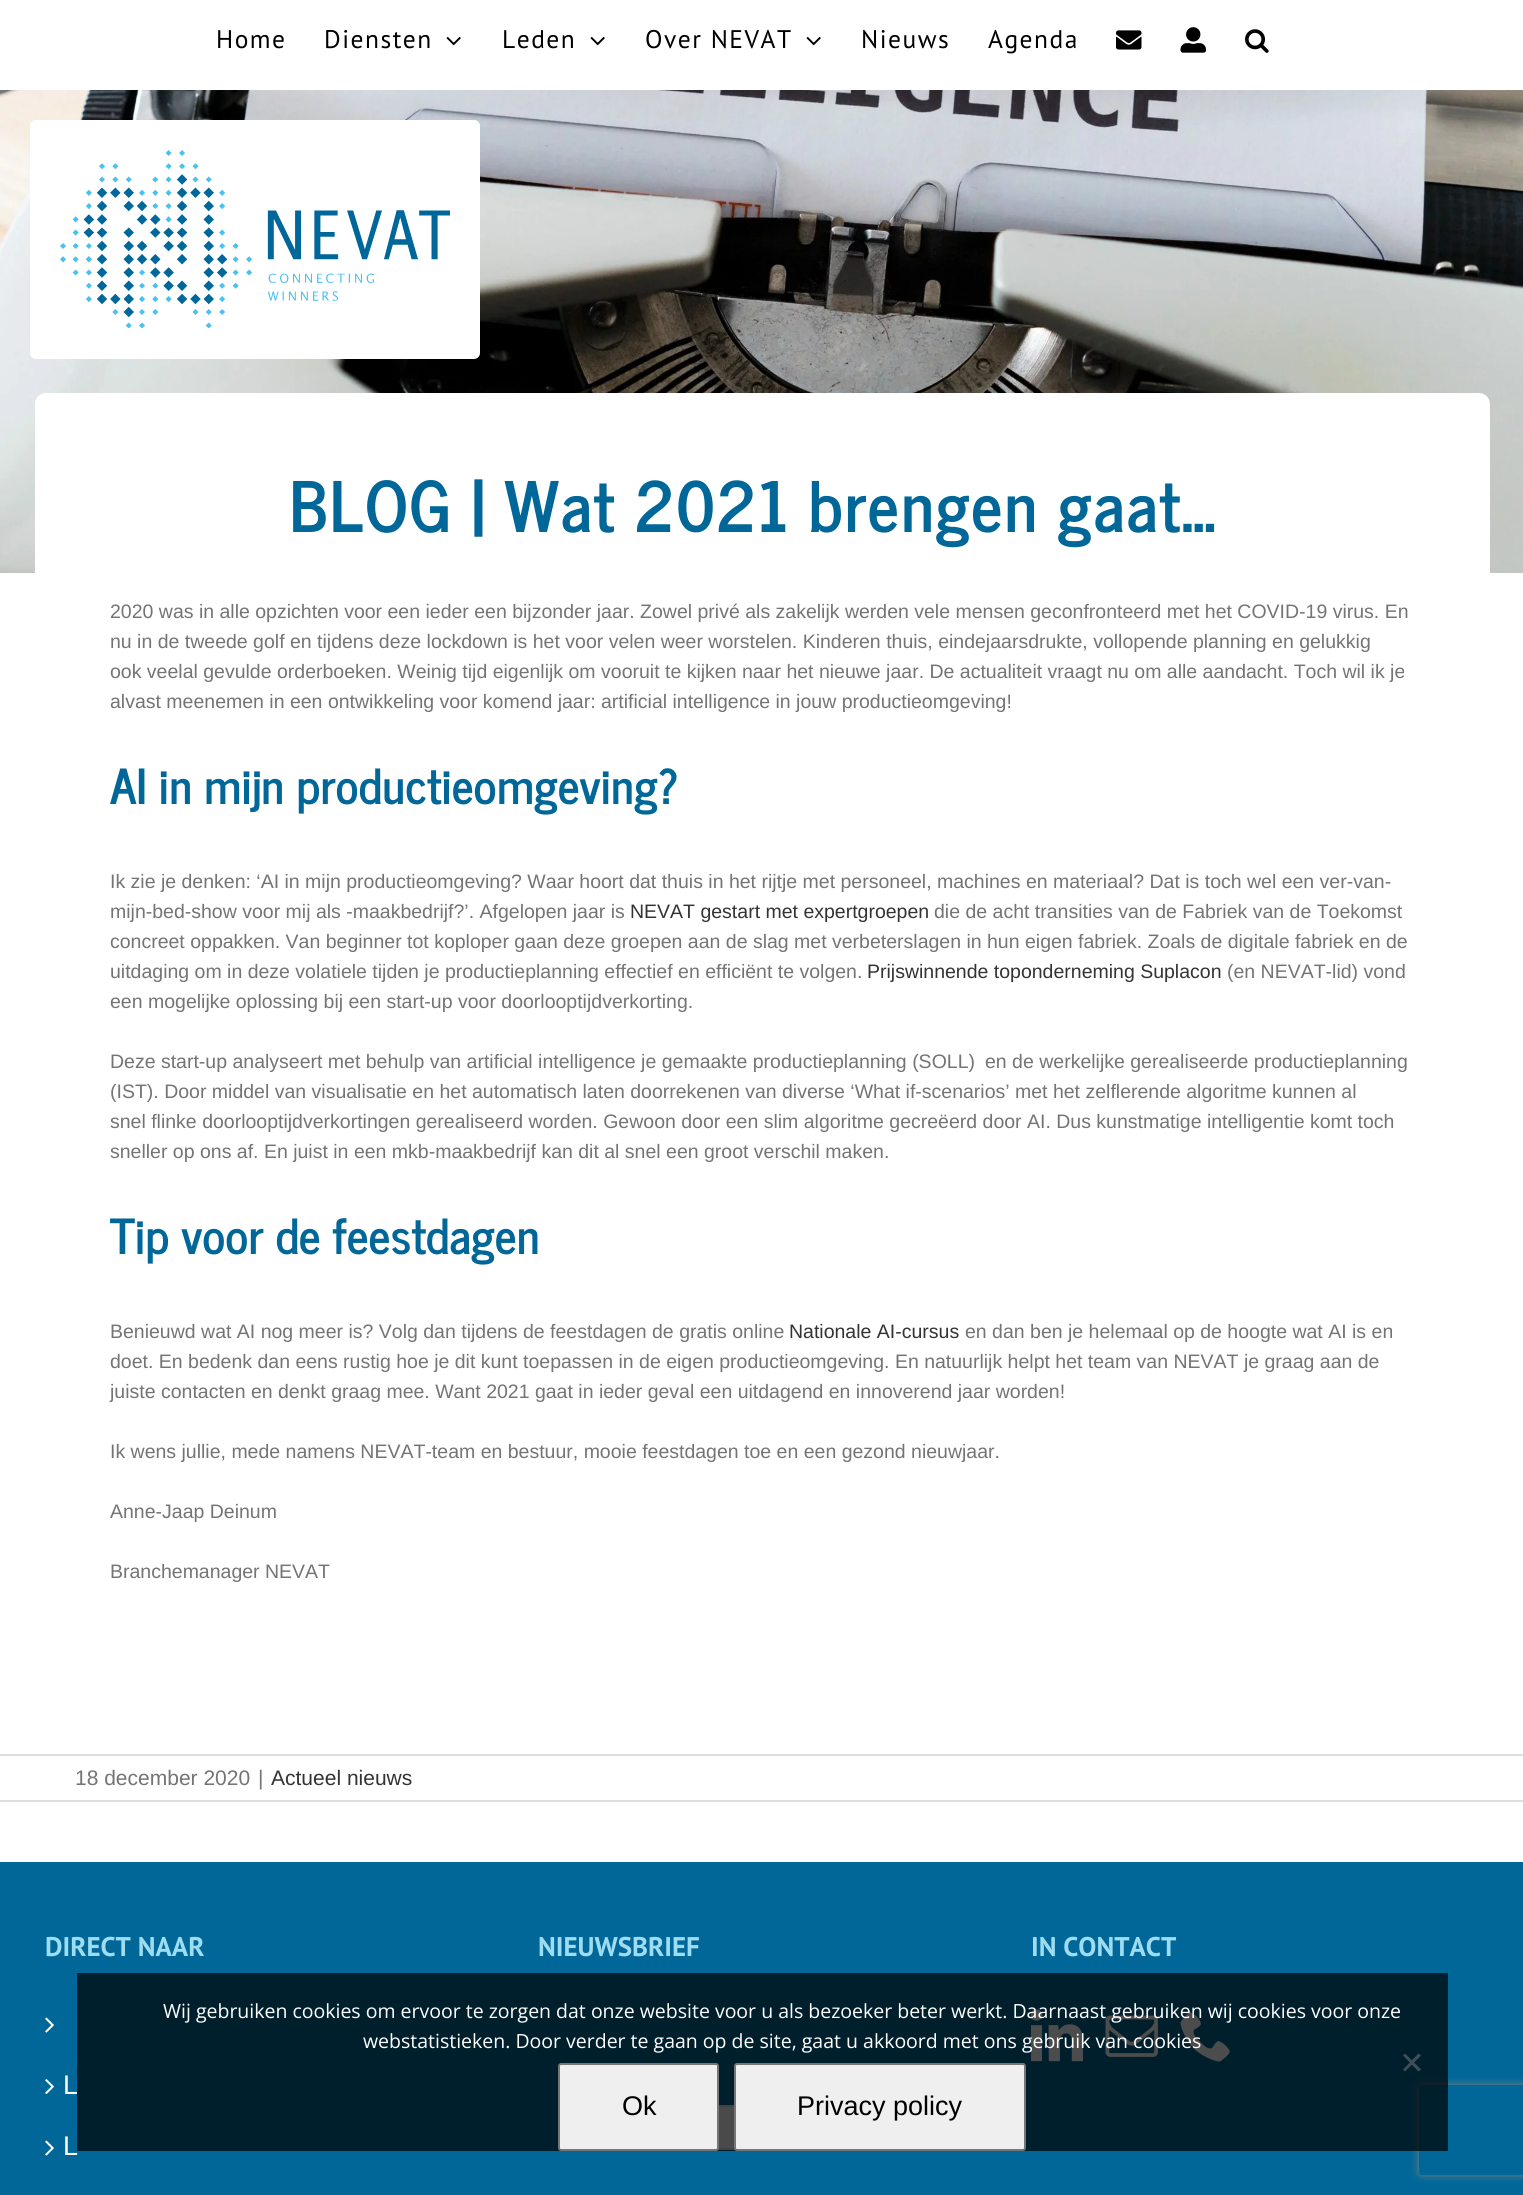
import math
import cairo

surface = cairo.ImageSurface(cairo.FORMAT_RGB24, 1523, 2195)
ctx = cairo.Context(surface)
options = cairo.FontOptions()
options.set_hint_metrics(cairo.HINT_METRICS_OFF)
options.set_hint_style(cairo.HINT_STYLE_NONE)
ctx.set_font_options(options)
ctx.set_miter_limit(4)


def set_color(code):
    ctx.set_source_rgb(*(v / 255 for v in bytes.fromhex(code[-6:])))


def draw_text(x, y, s, family, size, color, bold=False, italic=False):
    ctx.select_font_face(family, cairo.FONT_SLANT_ITALIC if italic else cairo.FONT_SLANT_NORMAL, cairo.FONT_WEIGHT_BOLD if bold else cairo.FONT_WEIGHT_NORMAL)
    ctx.set_font_size(size)
    set_color(color)
    ctx.move_to(x, y)
    ctx.show_text(s)


def draw_spaced(x, y, s, letter, word):
    ctx.move_to(x, y)
    for ch in s:
        ctx.show_text(ch)
        ctx.rel_move_to(letter + word * (ch == ' '), 0)


def fill_rect(x, y, w, h, color):
    set_color(color)
    ctx.rectangle(x, y, w, h)
    ctx.fill()


def rounded_rect(x, y, w, h, r):
    ctx.new_sub_path()
    for i, (u, v) in enumerate([(x + w - r, y + h - r), (x + r, y + h - r), (x + r, y + r), (x + w - r, y + r)]):
        ctx.arc(u, v, r, i * math.pi / 2, (i + 1) * math.pi / 2)
    ctx.close_path()


def draw_shadow(x, y, w, h, r, blur, alpha):
    ctx.push_group_with_content(cairo.CONTENT_ALPHA)
    ctx.set_operator(cairo.OPERATOR_SOURCE)
    for i in range(15, -16, -2):
        e = blur * i / 6
        if min(w, h) + 2 * e > 0:
            ctx.set_source_rgba(0, 0, 0, alpha * math.erfc((i - 1) / 8.5) / 2)
            rounded_rect(x - e, y - e, w + 2 * e, h + 2 * e, max(0, min(r + e + blur * .6, min(w, h) / 2 + e)))
            ctx.fill()
    ctx.mask(ctx.pop_group())


def draw_image(path, x, y, w, h):
    ctx.save()
    ctx.set_source_surface(cairo.ImageSurface.create_from_png(path), x, y)
    ctx.rectangle(x, y, w, h)
    ctx.fill()
    ctx.restore()


set_color("#ffffff")
ctx.paint()
ctx.select_font_face("PT Sans")
ctx.set_font_size(25.5)
set_color("#000000")
draw_spaced(216, 48, "Home", 1.5, 0)
draw_spaced(324, 48, "Diensten", 1.5, 0)
draw_image("assets/img1.png", 446, 37, 15, 9)
draw_spaced(502, 48, "Leden", 1.5, 0)
draw_image("assets/img1.png", 590, 37, 15, 9)
draw_spaced(645, 48, "Over NEVAT", 1.5, 0)
draw_image("assets/img1.png", 806, 37, 15, 9)
draw_spaced(861, 48, "Nieuws", 1.5, 0)
draw_spaced(988, 48, "Agenda", 1.5, 0)
draw_image("assets/img2.png", 1116, 30, 26, 20)
draw_image("assets/img3.png", 1180, 27, 26, 26)
draw_image("assets/img4.png", 1245, 29, 24, 24)
draw_image("assets/img6.png", 0, 90, 1523, 483)
set_color("#ffffff")
rounded_rect(30, 120, 450, 239, 6)
ctx.fill()
draw_image("assets/img5.png", 60, 150, 390, 179)
ctx.new_path()
ctx.move_to(46, 393)
ctx.line_to(1479, 393)
ctx.curve_to(1485, 393, 1490, 398, 1490, 404)
ctx.line_to(1490, 1722)
ctx.line_to(35, 1722)
ctx.line_to(35, 404)
ctx.curve_to(35, 398, 40, 393, 46, 393)
ctx.close_path()
ctx.fill()
ctx.select_font_face("News Cycle", cairo.FONT_SLANT_NORMAL, cairo.FONT_WEIGHT_BOLD)
ctx.set_font_size(69)
set_color("#006798")
draw_spaced(289, 532, "BLOG | Wat 2021 brengen gaat…", 1.5, 0)
draw_text(110, 618, "2020 was in alle opzichten voor een ieder een bijzonder jaar. Zowel privé als zakelijk werden vele mensen geconfronteerd met het COVID-19 virus. En", "Liberation Sans", 19.5, "#747474")
draw_text(110, 648, "nu in de tweede golf en tijdens deze lockdown is het voor velen weer worstelen. Kinderen thuis, eindejaarsdrukte, vollopende planning en gelukkig", "Liberation Sans", 19.5, "#747474")
draw_text(110, 678, "ook veelal gevulde orderboeken. Weinig tijd eigenlijk om vooruit te kijken naar het nieuwe jaar. De actualiteit vraagt nu om alle aandacht. Toch wil ik je", "Liberation Sans", 19.5, "#747474")
draw_text(110, 708, "alvast meenemen in een ontwikkeling voor komend jaar: artificial intelligence in jouw productieomgeving!", "Liberation Sans", 19.5, "#747474")
draw_text(110, 804, "AI in mijn productieomgeving?", "News Cycle", 48, "#006798", bold=True)
draw_text(110, 888, "Ik zie je denken: ‘AI in mijn productieomgeving? Waar hoort dat thuis in het rijtje met personeel, machines en materiaal? Dat is toch wel een ver-van-", "Liberation Sans", 19.5, "#747474")
draw_text(110, 918, "mijn-bed-show voor mij als -maakbedrijf?’. Afgelopen jaar is", "Liberation Sans", 19.5, "#747474")
draw_text(630, 918, "NEVAT gestart met expertgroepen", "Liberation Sans", 19.5, "#333333")
draw_text(934, 918, "die de acht transities van de Fabriek van de Toekomst", "Liberation Sans", 19.5, "#747474")
draw_text(110, 948, "concreet oppakken. Van beginner tot koploper gaan deze groepen aan de slag met verbeterslagen in hun eigen fabriek. Zoals de digitale fabriek en de", "Liberation Sans", 19.5, "#747474")
draw_text(110, 978, "uitdaging om in deze volatiele tijden je productieplanning effectief en efficiënt te volgen.", "Liberation Sans", 19.5, "#747474")
draw_text(867, 978, "Prijswinnende toponderneming Suplacon", "Liberation Sans", 19.5, "#333333")
draw_text(1227, 978, "(en NEVAT-lid) vond", "Liberation Sans", 19.5, "#747474")
draw_text(110, 1008, "een mogelijke oplossing bij een start-up voor doorlooptijdverkorting.", "Liberation Sans", 19.5, "#747474")
draw_text(110, 1068, "Deze start-up analyseert met behulp van artificial intelligence je gemaakte productieplanning (SOLL)", "Liberation Sans", 19.5, "#747474")
draw_text(985, 1068, "en de werkelijke gerealiseerde productieplanning", "Liberation Sans", 19.5, "#747474")
draw_text(110, 1098, "(IST). Door middel van visualisatie en het automatisch laten doorrekenen van diverse ‘What if-scenarios’ met het zelflerende algoritme kunnen al", "Liberation Sans", 19.5, "#747474")
draw_text(110, 1128, "snel flinke doorlooptijdverkortingen gerealiseerd worden. Gewoon door een slim algoritme gecreëerd door AI. Dus kunstmatige intelligentie komt toch", "Liberation Sans", 19.5, "#747474")
draw_text(110, 1158, "sneller op ons af. En juist in een mkb-maakbedrijf kan dit al snel een groot verschil maken.", "Liberation Sans", 19.5, "#747474")
draw_text(110, 1254, "Tip voor de feestdagen", "News Cycle", 48, "#006798", bold=True)
draw_text(110, 1338, "Benieuwd wat AI nog meer is? Volg dan tijdens de feestdagen de gratis online", "Liberation Sans", 19.5, "#747474")
draw_text(789, 1338, "Nationale AI-cursus", "Liberation Sans", 19.5, "#333333")
draw_text(965, 1338, "en dan ben je helemaal op de hoogte wat AI is en", "Liberation Sans", 19.5, "#747474")
draw_text(110, 1368, "doet. En bedenk dan eens rustig hoe je dit kunt toepassen in de eigen productieomgeving. En natuurlijk helpt het team van NEVAT je graag aan de", "Liberation Sans", 19.5, "#747474")
draw_text(110, 1398, "juiste contacten en denkt graag mee. Want 2021 gaat in ieder geval een uitdagend en innoverend jaar worden!", "Liberation Sans", 19.5, "#747474")
draw_text(110, 1458, "Ik wens jullie, mede namens NEVAT-team en bestuur, mooie feestdagen toe en een gezond nieuwjaar.", "Liberation Sans", 19.5, "#747474")
draw_text(110, 1518, "Anne-Jaap Deinum", "Liberation Sans", 19.5, "#747474")
draw_text(110, 1578, "Branchemanager NEVAT", "Liberation Sans", 19.5, "#747474")
fill_rect(0, 1754, 1523, 2, "#e0dede")
fill_rect(0, 1800, 1523, 2, "#e0dede")
draw_text(75, 1785, "18 december 2020", "Liberation Sans", 21, "#747474")
draw_text(258, 1785, "|", "Liberation Sans", 21, "#747474")
draw_text(271, 1785, "Actueel nieuws", "Liberation Sans", 21, "#333333")
fill_rect(0, 1862, 1523, 333, "#006798")
draw_text(45, 1956, "DIRECT NAAR", "PT Sans", 27, "#9dddf2", bold=True)
draw_image("assets/img7.png", 45, 2017, 9, 16)
draw_image("assets/img8.png", 45, 2079, 9, 15)
draw_text(63, 2094, "L", "Liberation Sans", 27, "#ffffff")
draw_image("assets/img7.png", 45, 2140, 9, 16)
draw_text(63, 2155, "L", "Liberation Sans", 27, "#ffffff")
draw_text(538, 1956, "NIEUWSBRIEF", "PT Sans", 27, "#9dddf2", bold=True)
fill_rect(719, 2107, 15, 41, "#faf9f8")
ctx.rectangle(585, 2106, 355, 43)
set_color("#e1dfdd")
ctx.stroke()
draw_text(1031, 1956, "IN CONTACT", "PT Sans", 27, "#9dddf2", bold=True)
draw_image("assets/img9.png", 1031, 2009, 52, 53)
draw_image("assets/img10.png", 1105, 2015, 53, 42)
draw_image("assets/img11.png", 1180, 2012, 50, 50)
ctx.save()
ctx.set_fill_rule(cairo.FILL_RULE_EVEN_ODD)
ctx.new_path()
ctx.move_to(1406, 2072)
ctx.line_to(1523, 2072)
ctx.line_to(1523, 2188)
ctx.line_to(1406, 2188)
ctx.close_path()
ctx.move_to(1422, 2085)
ctx.line_to(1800, 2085)
ctx.curve_to(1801.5, 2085, 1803, 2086.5, 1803, 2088)
ctx.line_to(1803, 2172)
ctx.curve_to(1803, 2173.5, 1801.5, 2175, 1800, 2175)
ctx.line_to(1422, 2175)
ctx.curve_to(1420.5, 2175, 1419, 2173.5, 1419, 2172)
ctx.line_to(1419, 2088)
ctx.curve_to(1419, 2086.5, 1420.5, 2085, 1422, 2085)
ctx.close_path()
ctx.clip()
set_color("#808080")
draw_shadow(1419, 2085, 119, 90, 3, 4, 1)
ctx.restore()
ctx.set_source_rgba(0, 0, 0, 0.7)
ctx.rectangle(77, 1973, 1371, 178)
ctx.fill()
draw_text(163, 2018, "Wij gebruiken cookies om ervoor te zorgen dat onze website voor u als bezoeker beter werkt. Daarnaast gebruiken wij cookies voor onze", "Open Sans", 19.5, "#ffffff")
draw_text(363, 2048, "webstatistieken. Door verder te gaan op de site, gaat u akkoord met ons gebruik van cookies", "Open Sans", 19.5, "#ffffff")
set_color("#404f57")
ctx.new_path()
ctx.move_to(1418.5, 2053.5)
ctx.line_to(1421, 2055.5)
ctx.line_to(1405, 2071.5)
ctx.line_to(1403, 2069.5)
ctx.close_path()
ctx.fill()
ctx.new_path()
ctx.move_to(1403, 2055.5)
ctx.line_to(1405, 2053.5)
ctx.line_to(1421, 2069.5)
ctx.line_to(1418.5, 2071.5)
ctx.close_path()
ctx.fill()
set_color("#efefef")
rounded_rect(559, 2064, 159, 86, 2)
ctx.fill_preserve()
set_color("#767676")
ctx.stroke()
draw_text(622, 2115, "Ok", "Liberation Sans", 27, "#000000")
set_color("#efefef")
rounded_rect(735, 2064, 290, 86, 2)
ctx.fill_preserve()
set_color("#767676")
ctx.stroke()
draw_text(797, 2115, "Privacy policy", "Liberation Sans", 27, "#000000")
surface.write_to_png("output.png")
